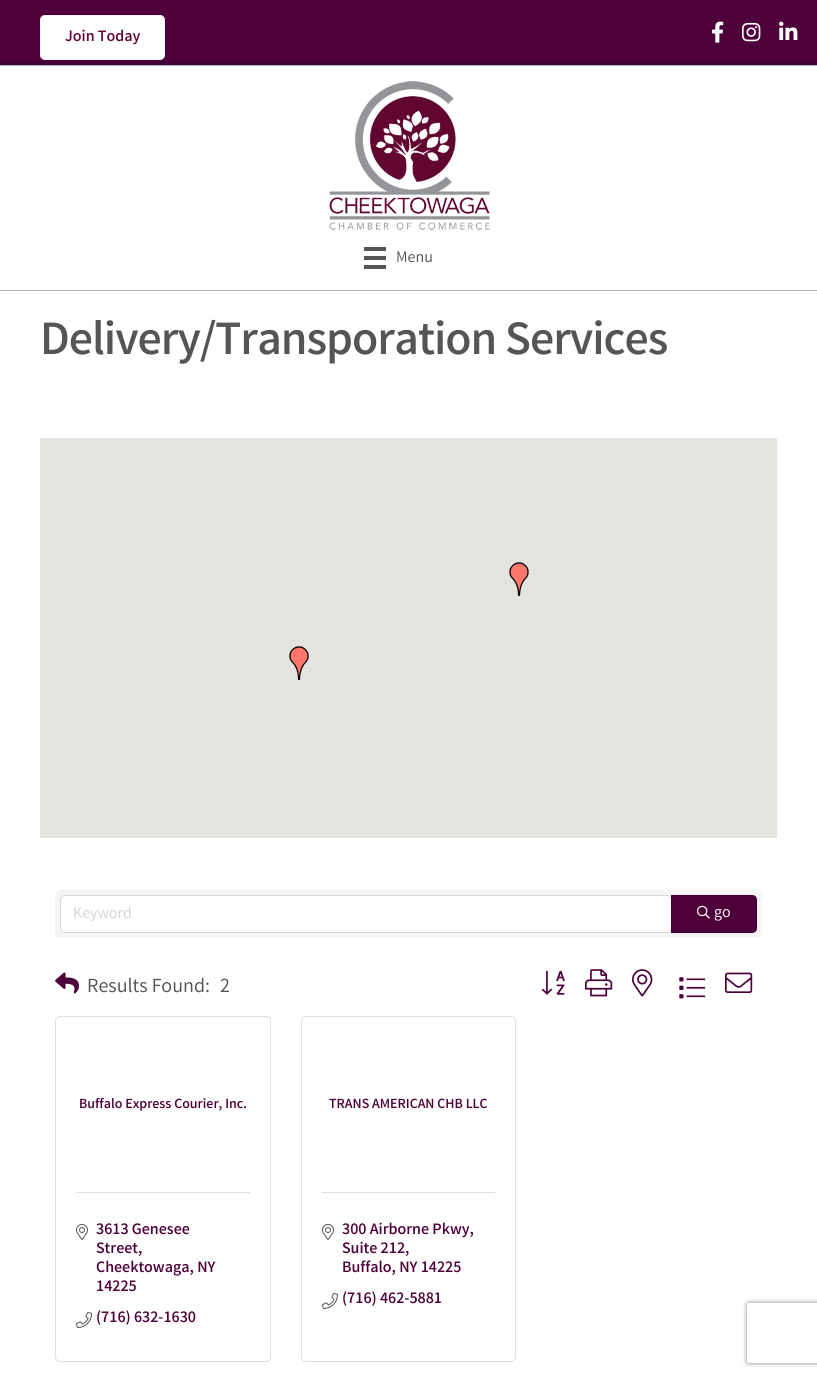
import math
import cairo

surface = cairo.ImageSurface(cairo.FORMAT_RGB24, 817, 1377)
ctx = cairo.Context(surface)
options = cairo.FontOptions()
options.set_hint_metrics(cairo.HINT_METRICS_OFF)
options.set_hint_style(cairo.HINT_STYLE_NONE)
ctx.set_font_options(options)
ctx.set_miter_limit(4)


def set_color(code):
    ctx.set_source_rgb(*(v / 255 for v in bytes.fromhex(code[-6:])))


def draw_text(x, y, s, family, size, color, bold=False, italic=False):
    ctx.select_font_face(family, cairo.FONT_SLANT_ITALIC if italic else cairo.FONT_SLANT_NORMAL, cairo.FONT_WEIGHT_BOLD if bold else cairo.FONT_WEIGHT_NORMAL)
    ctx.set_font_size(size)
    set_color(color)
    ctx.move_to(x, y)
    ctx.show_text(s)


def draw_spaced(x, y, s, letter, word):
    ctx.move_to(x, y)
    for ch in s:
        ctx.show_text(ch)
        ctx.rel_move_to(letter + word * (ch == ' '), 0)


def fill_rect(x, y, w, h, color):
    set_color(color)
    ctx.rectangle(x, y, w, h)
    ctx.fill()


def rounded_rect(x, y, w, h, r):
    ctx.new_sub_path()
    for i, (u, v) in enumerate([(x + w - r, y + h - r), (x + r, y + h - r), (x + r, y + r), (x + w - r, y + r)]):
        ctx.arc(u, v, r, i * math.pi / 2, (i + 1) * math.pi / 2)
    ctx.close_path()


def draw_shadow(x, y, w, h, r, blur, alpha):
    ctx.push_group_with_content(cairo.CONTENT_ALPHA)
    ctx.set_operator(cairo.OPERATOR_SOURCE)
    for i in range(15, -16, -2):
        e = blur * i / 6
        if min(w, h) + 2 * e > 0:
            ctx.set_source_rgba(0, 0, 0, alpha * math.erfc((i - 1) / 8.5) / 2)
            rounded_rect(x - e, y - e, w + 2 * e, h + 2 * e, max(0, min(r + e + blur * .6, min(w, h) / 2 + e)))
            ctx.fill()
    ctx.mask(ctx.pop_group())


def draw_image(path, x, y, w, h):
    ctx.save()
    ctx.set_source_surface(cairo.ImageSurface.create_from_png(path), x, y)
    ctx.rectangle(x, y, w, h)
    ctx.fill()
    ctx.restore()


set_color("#ffffff")
ctx.paint()
fill_rect(0, 0, 817, 65, "#4d0039")
set_color("#ffffff")
rounded_rect(40.5, 15.5, 124, 44, 4.5)
ctx.fill_preserve()
set_color("#f3f3f3")
ctx.set_line_width(1)
ctx.stroke()
draw_text(65, 41, "Join Today", "Varta", 16, "#610631", bold=True)
draw_image("assets/img1.png", 711, 21, 13, 22)
draw_image("assets/img2.png", 742, 22, 19, 20)
draw_image("assets/img3.png", 779, 21, 19, 19)
ctx.save()
ctx.rectangle(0, 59, 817, 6)
ctx.clip()
set_color("#001524")
draw_shadow(-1, 64, 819, 228, 0, 3, 0.43)
ctx.restore()
fill_rect(0, 65, 817, 1, "#b0b6bb")
fill_rect(0, 290, 817, 1, "#b0b6bb")
draw_image("assets/img4.png", 329, 81, 161, 149)
fill_rect(364, 247, 22, 4, "#555555")
fill_rect(364, 256, 22, 4, "#555555")
fill_rect(364, 265, 22, 4, "#555555")
draw_text(396, 262, "Menu", "Varta", 16, "#555555")
fill_rect(0, 291, 817, 7, "#ffffff")
ctx.select_font_face("Varta", cairo.FONT_SLANT_NORMAL, cairo.FONT_WEIGHT_BOLD)
ctx.set_font_size(48)
set_color("#555555")
draw_spaced(40, 354, "Delivery/Transporation Services", -1, 0)
fill_rect(40, 438, 737, 400, "#e5e3df")
draw_image("assets/img5.png", 509, 562, 20, 34)
draw_image("assets/img5.png", 289, 646, 20, 34)
set_color("#f5f5f5")
rounded_rect(55, 890, 707, 48, 5)
ctx.fill()
set_color("#ffffff")
rounded_rect(60.5, 895.5, 611, 37, 4.5)
ctx.fill_preserve()
set_color("#d6d6d6")
ctx.stroke()
draw_text(73, 918, "Keyword", "Varta", 16, "#d2d2d2")
set_color("#4d0039")
ctx.new_path()
ctx.move_to(671, 895)
ctx.line_to(752, 895)
ctx.curve_to(755, 895, 757, 897, 757, 900)
ctx.line_to(757, 928)
ctx.curve_to(757, 931, 755, 933, 752, 933)
ctx.line_to(671, 933)
ctx.close_path()
ctx.fill()
ctx.new_path()
ctx.move_to(671.5, 895.5)
ctx.line_to(752, 895.5)
ctx.curve_to(754.5, 895.5, 756.5, 897.5, 756.5, 900)
ctx.line_to(756.5, 928)
ctx.curve_to(756.5, 930.5, 754.5, 932.5, 752, 932.5)
ctx.line_to(671.5, 932.5)
ctx.close_path()
ctx.set_source_rgba(0, 0, 0, 0.12)
ctx.stroke()
draw_image("assets/img6.png", 697, 905, 13, 14)
draw_text(714, 917, "go", "Varta", 16, "#ffffff")
draw_image("assets/img7.png", 55, 972, 24, 22)
draw_text(87, 992, "Results Found:", "Varta", 20, "#555555")
draw_text(220, 992, "2", "Varta", 20, "#555555")
draw_image("assets/img8.png", 541, 970, 24, 25)
draw_image("assets/img9.png", 585, 969, 28, 28)
draw_image("assets/img10.png", 632, 969, 21, 28)
draw_image("assets/img11.png", 679, 977, 27, 22)
draw_image("assets/img12.png", 725, 972, 28, 21)
rounded_rect(55.5, 1016.5, 215, 345, 4.5)
set_color("#dfdfdf")
ctx.stroke()
draw_text(79, 1108, "Buffalo Express Courier, Inc.", "Varta", 14, "#4d0039", bold=True)
fill_rect(76, 1192, 174, 1, "#dfdfdf")
draw_image("assets/img13.png", 76, 1224, 12, 16)
draw_text(96, 1234, "3613 Genesee", "Varta", 16, "#4d0039", bold=True)
draw_text(96, 1253, "Street,", "Varta", 16, "#4d0039", bold=True)
draw_text(96, 1272, "Cheektowaga, NY", "Varta", 16, "#4d0039", bold=True)
draw_text(96, 1291, "14225", "Varta", 16, "#4d0039", bold=True)
draw_image("assets/img14.png", 76, 1312, 16, 16)
draw_text(96, 1322, "(716) 632-1630", "Varta", 16, "#4d0039", bold=True)
rounded_rect(301.5, 1016.5, 214, 345, 4.5)
set_color("#dfdfdf")
ctx.stroke()
draw_text(329, 1108, "TRANS AMERICAN CHB LLC", "Varta", 14, "#4d0039", bold=True)
fill_rect(322, 1192, 173, 1, "#dfdfdf")
draw_image("assets/img13.png", 322, 1224, 12, 16)
draw_text(342, 1234, "300 Airborne Pkwy,", "Varta", 16, "#4d0039", bold=True)
draw_text(342, 1253, "Suite 212,", "Varta", 16, "#4d0039", bold=True)
draw_text(342, 1272, "Buffalo, NY 14225", "Varta", 16, "#4d0039", bold=True)
draw_image("assets/img14.png", 322, 1293, 16, 16)
draw_text(342, 1303, "(716) 462-5881", "Varta", 16, "#4d0039", bold=True)
ctx.save()
ctx.set_fill_rule(cairo.FILL_RULE_EVEN_ODD)
ctx.new_path()
ctx.move_to(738, 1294)
ctx.line_to(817, 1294)
ctx.line_to(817, 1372)
ctx.line_to(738, 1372)
ctx.close_path()
ctx.move_to(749, 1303)
ctx.line_to(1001, 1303)
ctx.curve_to(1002, 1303, 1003, 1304, 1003, 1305)
ctx.line_to(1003, 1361)
ctx.curve_to(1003, 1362, 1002, 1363, 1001, 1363)
ctx.line_to(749, 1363)
ctx.curve_to(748, 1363, 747, 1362, 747, 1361)
ctx.line_to(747, 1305)
ctx.curve_to(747, 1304, 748, 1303, 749, 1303)
ctx.close_path()
ctx.clip()
set_color("#808080")
draw_shadow(747, 1303, 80, 60, 2, 2.5, 1)
ctx.restore()
surface.write_to_png("output.png")
